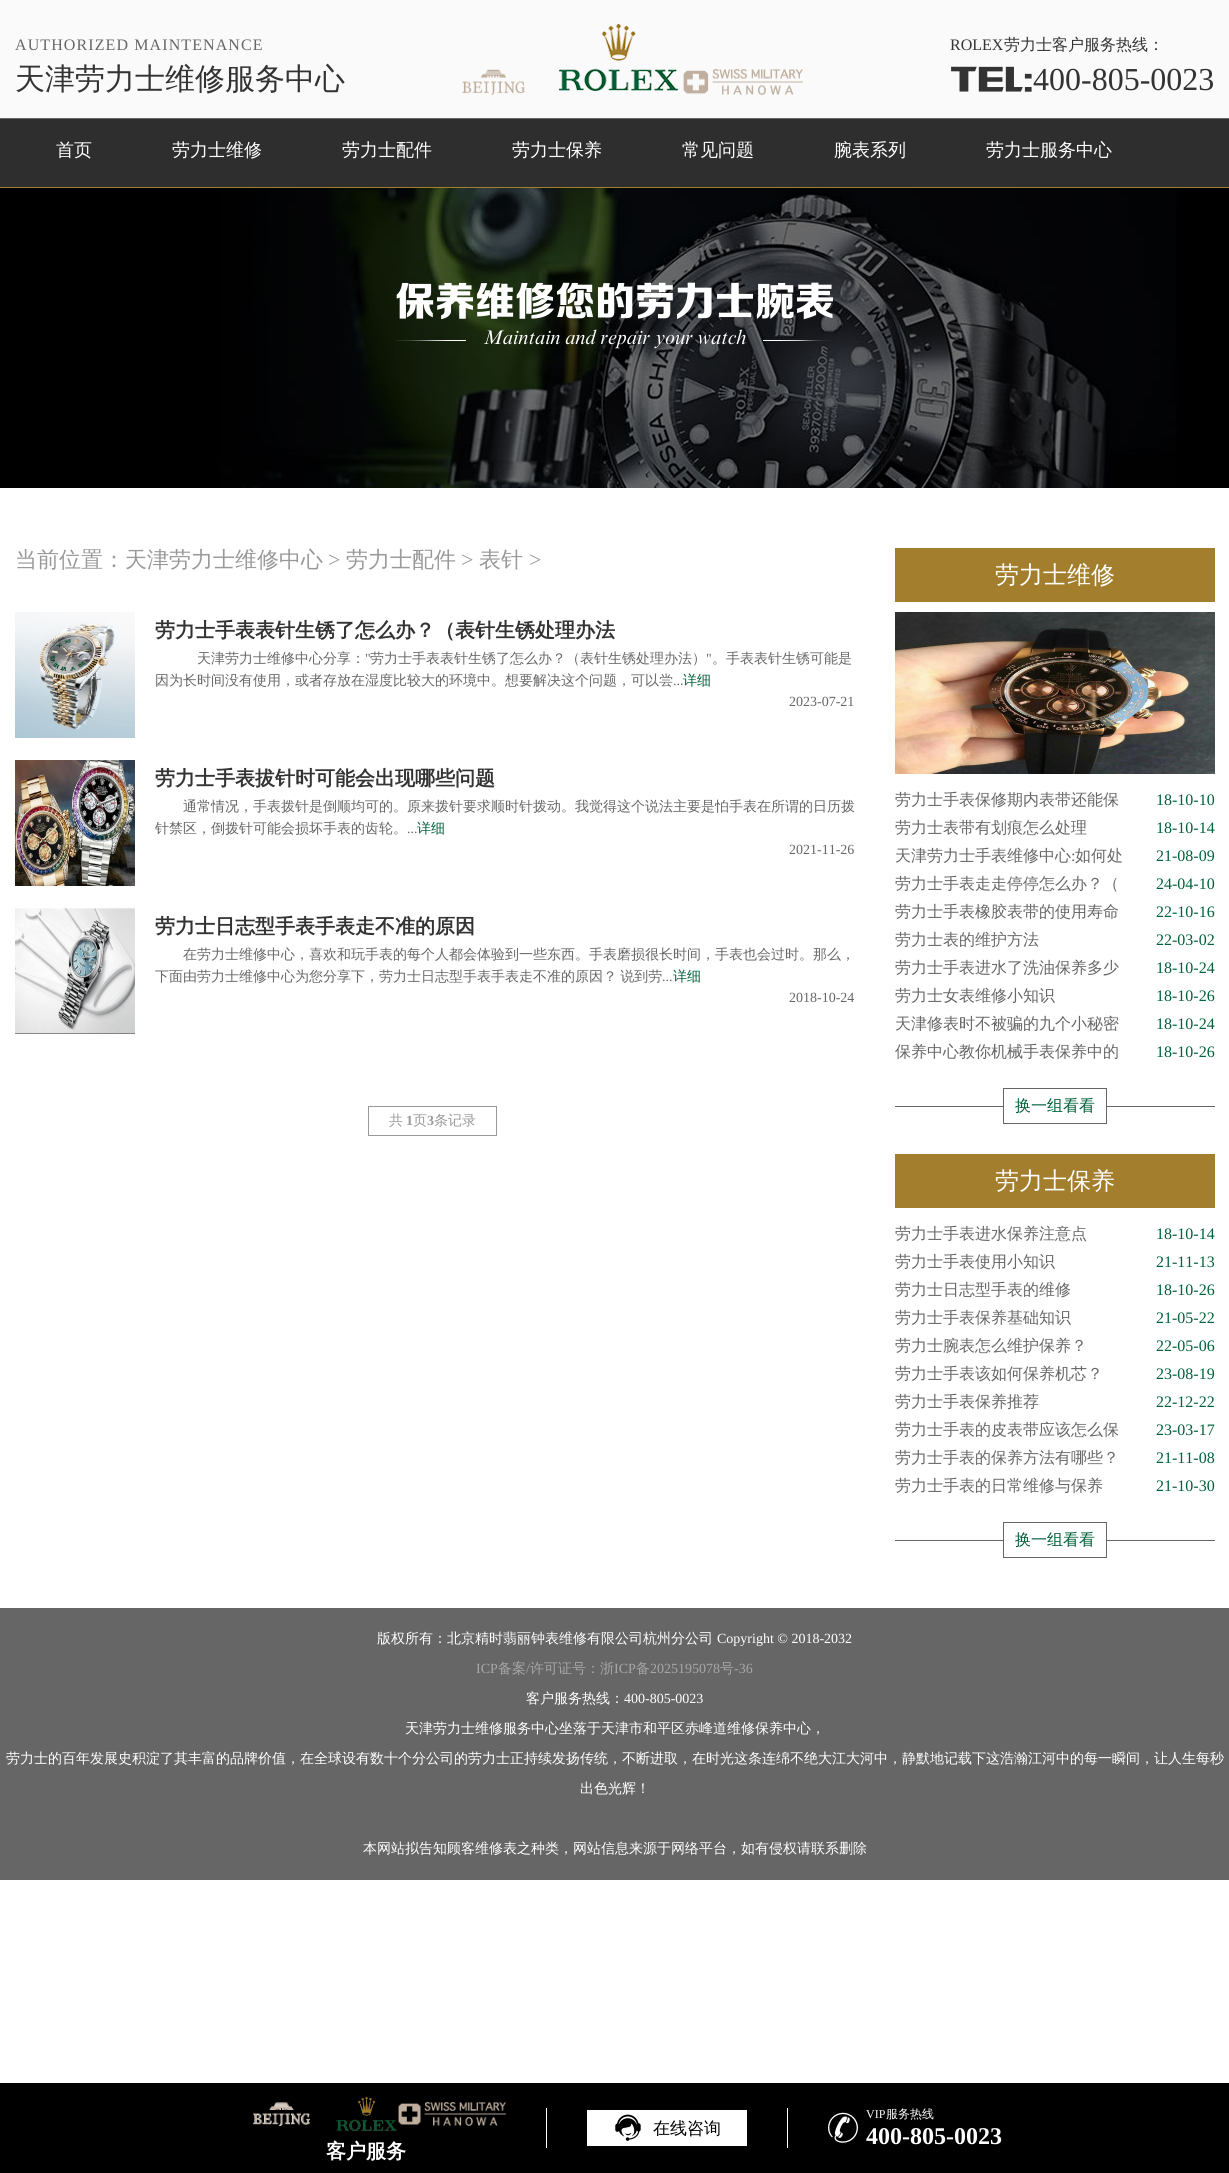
import math
import cairo

surface = cairo.ImageSurface(cairo.FORMAT_RGB24, 1229, 2173)
ctx = cairo.Context(surface)
options = cairo.FontOptions()
options.set_hint_metrics(cairo.HINT_METRICS_OFF)
options.set_hint_style(cairo.HINT_STYLE_NONE)
ctx.set_font_options(options)
ctx.set_miter_limit(4)


def set_color(code):
    ctx.set_source_rgb(*(v / 255 for v in bytes.fromhex(code[-6:])))


def draw_text(x, y, s, family, size, color, bold=False, italic=False):
    ctx.select_font_face(family, cairo.FONT_SLANT_ITALIC if italic else cairo.FONT_SLANT_NORMAL, cairo.FONT_WEIGHT_BOLD if bold else cairo.FONT_WEIGHT_NORMAL)
    ctx.set_font_size(size)
    set_color(color)
    ctx.move_to(x, y)
    ctx.show_text(s)


def draw_spaced(x, y, s, letter, word):
    ctx.move_to(x, y)
    for ch in s:
        ctx.show_text(ch)
        ctx.rel_move_to(letter + word * (ch == ' '), 0)


def fill_rect(x, y, w, h, color):
    set_color(color)
    ctx.rectangle(x, y, w, h)
    ctx.fill()


def draw_image(path, x, y, w, h):
    ctx.save()
    ctx.set_source_surface(cairo.ImageSurface.create_from_png(path), x, y)
    ctx.rectangle(x, y, w, h)
    ctx.fill()
    ctx.restore()


set_color("#ffffff")
ctx.paint()
fill_rect(0, 0, 1229, 118, "#fafafa")
ctx.select_font_face("Liberation Serif")
ctx.set_font_size(16)
set_color("#666666")
draw_spaced(15, 50, "AUTHORIZED MAINTENANCE", 1.1, 0)
draw_text(15, 89, "天津劳力士维修服务中心", "WenQuanYi Zen Hei Medium", 30, "#333333")
draw_image("assets/img1.png", 462, 69, 63, 26)
draw_image("assets/img2.png", 559, 24, 119, 67)
draw_image("assets/img3.png", 683, 69, 120, 26)
draw_text(950, 50, "ROLEX", "Liberation Serif", 16, "#333333")
draw_text(1004, 50, "劳力士客户服务热线：", "WenQuanYi Zen Hei Medium", 16, "#333333")
draw_text(950, 90, "TEL:", "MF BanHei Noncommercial", 36, "#333333")
draw_text(1033, 90, "400-805-0023", "Liberation Serif", 32, "#333333")
fill_rect(0, 119, 1229, 68, "#2e2e2e")
fill_rect(0, 118, 1229, 1, "#666666")
fill_rect(0, 187, 1229, 1, "#a47f2e")
draw_text(56, 156, "首页", "WenQuanYi Zen Hei Medium", 18, "#ffffff")
draw_text(172, 156, "劳力士维修", "WenQuanYi Zen Hei Medium", 18, "#ffffff")
draw_text(342, 156, "劳力士配件", "WenQuanYi Zen Hei Medium", 18, "#ffffff")
draw_text(512, 156, "劳力士保养", "WenQuanYi Zen Hei Medium", 18, "#ffffff")
draw_text(682, 156, "常见问题", "WenQuanYi Zen Hei Medium", 18, "#ffffff")
draw_text(834, 156, "腕表系列", "WenQuanYi Zen Hei Medium", 18, "#ffffff")
draw_text(986, 156, "劳力士服务中心", "WenQuanYi Zen Hei Medium", 18, "#ffffff")
draw_image("assets/img4.png", 0, 188, 1229, 300)
draw_text(395, 315, "保养维修您的劳力士腕表", "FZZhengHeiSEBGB", 40, "#ffffff")
draw_image("assets/img5.png", 396, 340, 437, 1)
draw_text(483, 344, "Maintain and repair your watch", "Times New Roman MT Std", 20, "#ffffff", italic=True)
draw_text(15, 567, "当前位置：天津劳力士维修中心", "WenQuanYi Zen Hei Medium", 22, "#999999")
draw_text(328, 567, ">", "Liberation Serif", 22, "#999999")
draw_text(346, 567, "劳力士配件", "WenQuanYi Zen Hei Medium", 22, "#999999")
draw_text(461, 567, ">", "Liberation Serif", 22, "#999999")
draw_text(479, 567, "表针", "WenQuanYi Zen Hei Medium", 22, "#999999")
draw_text(529, 567, ">", "Liberation Serif", 22, "#999999")
draw_image("assets/img6.png", 15, 612, 120, 126)
draw_text(155, 637, "劳力士手表表针生锈了怎么办？（表针生锈处理办法", "WenQuanYi Zen Hei", 20, "#333333", bold=True)
draw_text(197, 663, "天津劳力士维修中心分享：", "WenQuanYi Zen Hei Medium", 14, "#666666")
draw_text(365, 663, "\"", "Liberation Serif", 14, "#666666")
draw_text(370, 663, "劳力士手表表针生锈了怎么办？（表针生锈处理办法）", "WenQuanYi Zen Hei Medium", 14, "#666666")
draw_text(706, 663, "\"", "Liberation Serif", 14, "#666666")
draw_text(712, 663, "。手表表针生锈可能是", "WenQuanYi Zen Hei Medium", 14, "#666666")
draw_text(155, 685, "因为长时间没有使用，或者存放在湿度比较大的环境中。想要解决这个问题，可以尝", "WenQuanYi Zen Hei Medium", 14, "#666666")
draw_text(673, 685, "...", "Liberation Serif", 14, "#666666")
draw_text(683, 685, "详细", "WenQuanYi Zen Hei Medium", 14, "#00613a")
draw_text(789, 706, "2023-07-21", "Liberation Serif", 14, "#666666")
draw_image("assets/img7.png", 15, 760, 120, 126)
draw_text(155, 785, "劳力士手表拔针时可能会出现哪些问题", "WenQuanYi Zen Hei", 20, "#333333", bold=True)
draw_text(183, 811, "通常情况，手表拨针是倒顺均可的。原来拨针要求顺时针拨动。我觉得这个说法主要是怕手表在所谓的日历拨", "WenQuanYi Zen Hei Medium", 14, "#666666")
draw_text(155, 833, "针禁区，倒拨针可能会损坏手表的齿轮。", "WenQuanYi Zen Hei Medium", 14, "#666666")
draw_text(407, 833, "...", "Liberation Serif", 14, "#666666")
draw_text(417, 833, "详细", "WenQuanYi Zen Hei Medium", 14, "#00613a")
draw_text(789, 854, "2021-11-26", "Liberation Serif", 14, "#666666")
draw_image("assets/img8.png", 15, 908, 120, 126)
draw_text(155, 933, "劳力士日志型手表手表走不准的原因", "WenQuanYi Zen Hei", 20, "#333333", bold=True)
draw_text(183, 959, "在劳力士维修中心，喜欢和玩手表的每个人都会体验到一些东西。手表磨损很长时间，手表也会过时。那么，", "WenQuanYi Zen Hei Medium", 14, "#666666")
draw_spaced(155, 981, "下面由劳力士维修中心为您分享下，劳力士日志型手表手表走不准的原因？ 说到劳", 0, -1)
draw_text(662, 981, "...", "Liberation Serif", 14, "#666666")
draw_text(673, 981, "详细", "WenQuanYi Zen Hei Medium", 14, "#00613a")
draw_text(789, 1002, "2018-10-24", "Liberation Serif", 14, "#666666")
ctx.rectangle(368.5, 1106.5, 128, 29)
set_color("#999999")
ctx.set_line_width(1)
ctx.stroke()
draw_text(389, 1125, "共", "WenQuanYi Zen Hei Medium", 14, "#999999")
draw_text(406, 1125, "1", "Liberation Serif", 14, "#999999", bold=True)
draw_text(413, 1125, "页", "WenQuanYi Zen Hei Medium", 14, "#999999")
draw_text(427, 1125, "3", "Liberation Serif", 14, "#999999", bold=True)
draw_text(434, 1125, "条记录", "WenQuanYi Zen Hei Medium", 14, "#999999")
fill_rect(895, 548, 320, 54, "#a37e2c")
draw_text(995, 583, "劳力士维修", "WenQuanYi Zen Hei Medium", 24, "#ffffff")
draw_image("assets/img9.png", 895, 612, 320, 162)
draw_text(895, 805, "劳力士手表保修期内表带还能保", "WenQuanYi Zen Hei Medium", 16, "#666666")
draw_text(1156, 805, "18-10-10", "Liberation Serif", 16, "#00613a")
draw_text(895, 833, "劳力士表带有划痕怎么处理", "WenQuanYi Zen Hei Medium", 16, "#666666")
draw_text(1156, 833, "18-10-14", "Liberation Serif", 16, "#00613a")
draw_text(895, 861, "天津劳力士手表维修中心", "WenQuanYi Zen Hei Medium", 16, "#666666")
draw_text(1071, 861, ":", "Liberation Serif", 16, "#666666")
draw_text(1075, 861, "如何处", "WenQuanYi Zen Hei Medium", 16, "#666666")
draw_text(1156, 861, "21-08-09", "Liberation Serif", 16, "#00613a")
draw_text(895, 889, "劳力士手表走走停停怎么办？（", "WenQuanYi Zen Hei Medium", 16, "#666666")
draw_text(1156, 889, "24-04-10", "Liberation Serif", 16, "#00613a")
draw_text(895, 917, "劳力士手表橡胶表带的使用寿命", "WenQuanYi Zen Hei Medium", 16, "#666666")
draw_text(1156, 917, "22-10-16", "Liberation Serif", 16, "#00613a")
draw_text(895, 945, "劳力士表的维护方法", "WenQuanYi Zen Hei Medium", 16, "#666666")
draw_text(1156, 945, "22-03-02", "Liberation Serif", 16, "#00613a")
draw_text(895, 973, "劳力士手表进水了洗油保养多少", "WenQuanYi Zen Hei Medium", 16, "#666666")
draw_text(1156, 973, "18-10-24", "Liberation Serif", 16, "#00613a")
draw_text(895, 1001, "劳力士女表维修小知识", "WenQuanYi Zen Hei Medium", 16, "#666666")
draw_text(1156, 1001, "18-10-26", "Liberation Serif", 16, "#00613a")
draw_text(895, 1029, "天津修表时不被骗的九个小秘密", "WenQuanYi Zen Hei Medium", 16, "#666666")
draw_text(1156, 1029, "18-10-24", "Liberation Serif", 16, "#00613a")
draw_text(895, 1057, "保养中心教你机械手表保养中的", "WenQuanYi Zen Hei Medium", 16, "#666666")
draw_text(1156, 1057, "18-10-26", "Liberation Serif", 16, "#00613a")
draw_image("assets/img10.png", 895, 1088, 320, 36)
draw_text(1015, 1111, "换一组看看", "WenQuanYi Zen Hei Medium", 16, "#00613a")
fill_rect(895, 1154, 320, 54, "#a37e2c")
draw_text(995, 1189, "劳力士保养", "WenQuanYi Zen Hei Medium", 24, "#ffffff")
draw_text(895, 1239, "劳力士手表进水保养注意点", "WenQuanYi Zen Hei Medium", 16, "#666666")
draw_text(1156, 1239, "18-10-14", "Liberation Serif", 16, "#00613a")
draw_text(895, 1267, "劳力士手表使用小知识", "WenQuanYi Zen Hei Medium", 16, "#666666")
draw_text(1156, 1267, "21-11-13", "Liberation Serif", 16, "#00613a")
draw_text(895, 1295, "劳力士日志型手表的维修", "WenQuanYi Zen Hei Medium", 16, "#666666")
draw_text(1156, 1295, "18-10-26", "Liberation Serif", 16, "#00613a")
draw_text(895, 1323, "劳力士手表保养基础知识", "WenQuanYi Zen Hei Medium", 16, "#666666")
draw_text(1156, 1323, "21-05-22", "Liberation Serif", 16, "#00613a")
draw_text(895, 1351, "劳力士腕表怎么维护保养？", "WenQuanYi Zen Hei Medium", 16, "#666666")
draw_text(1156, 1351, "22-05-06", "Liberation Serif", 16, "#00613a")
draw_text(895, 1379, "劳力士手表该如何保养机芯？", "WenQuanYi Zen Hei Medium", 16, "#666666")
draw_text(1156, 1379, "23-08-19", "Liberation Serif", 16, "#00613a")
draw_text(895, 1407, "劳力士手表保养推荐", "WenQuanYi Zen Hei Medium", 16, "#666666")
draw_text(1156, 1407, "22-12-22", "Liberation Serif", 16, "#00613a")
draw_text(895, 1435, "劳力士手表的皮表带应该怎么保", "WenQuanYi Zen Hei Medium", 16, "#666666")
draw_text(1156, 1435, "23-03-17", "Liberation Serif", 16, "#00613a")
draw_text(895, 1463, "劳力士手表的保养方法有哪些？", "WenQuanYi Zen Hei Medium", 16, "#666666")
draw_text(1156, 1463, "21-11-08", "Liberation Serif", 16, "#00613a")
draw_text(895, 1491, "劳力士手表的日常维修与保养", "WenQuanYi Zen Hei Medium", 16, "#666666")
draw_text(1156, 1491, "21-10-30", "Liberation Serif", 16, "#00613a")
draw_image("assets/img10.png", 895, 1522, 320, 36)
draw_text(1015, 1545, "换一组看看", "WenQuanYi Zen Hei Medium", 16, "#00613a")
fill_rect(0, 1608, 1229, 272, "#666666")
draw_text(377, 1643, "版权所有：北京精时翡丽钟表维修有限公司杭州分公司", "WenQuanYi Zen Hei Medium", 14, "#ffffff")
draw_text(717, 1643, "Copyright © 2018-2032", "Liberation Serif", 14, "#ffffff")
draw_text(476, 1673, "ICP", "Liberation Serif", 14, "#a7a7a7")
draw_text(498, 1673, "备案", "WenQuanYi Zen Hei Medium", 14, "#a7a7a7")
draw_text(526, 1673, "/", "Liberation Serif", 14, "#a7a7a7")
draw_text(530, 1673, "许可证号：浙", "WenQuanYi Zen Hei Medium", 14, "#a7a7a7")
draw_text(614, 1673, "ICP", "Liberation Serif", 14, "#a7a7a7")
draw_text(636, 1673, "备", "WenQuanYi Zen Hei Medium", 14, "#a7a7a7")
draw_text(650, 1673, "2025195078", "Liberation Serif", 14, "#a7a7a7")
draw_text(720, 1673, "号", "WenQuanYi Zen Hei Medium", 14, "#a7a7a7")
draw_text(734, 1673, "-36", "Liberation Serif", 14, "#a7a7a7")
draw_text(526, 1703, "客户服务热线：", "WenQuanYi Zen Hei Medium", 14, "#ffffff")
draw_text(624, 1703, "400-805-0023", "Liberation Serif", 14, "#ffffff")
draw_text(405, 1733, "天津劳力士维修服务中心坐落于天津市和平区赤峰道维修保养中心，", "WenQuanYi Zen Hei Medium", 14, "#ffffff")
draw_text(6, 1763, "劳力士的百年发展史积淀了其丰富的品牌价值，在全球设有数十个分公司的劳力士正持续发扬传统，不断进取，在时光这条连绵不绝大江大河中，静默地记载下这浩瀚江河中的每一瞬间，让人生每秒", "WenQuanYi Zen Hei Medium", 14, "#ffffff")
draw_text(580, 1793, "出色光辉！", "WenQuanYi Zen Hei Medium", 14, "#ffffff")
draw_text(363, 1853, "本网站拟告知顾客维修表之种类，网站信息来源于网络平台，如有侵权请联系删除", "WenQuanYi Zen Hei Medium", 14, "#ffffff")
fill_rect(0, 2083, 1229, 90, "#000000")
fill_rect(546, 2108, 1, 40, "#ffffff")
fill_rect(587, 2110, 160, 36, "#ffffff")
draw_image("assets/img11.png", 615, 2114, 26, 27)
draw_text(653, 2134, "在线咨询", "WenQuanYi Zen Hei Medium", 17, "#000000")
fill_rect(787, 2108, 1, 40, "#ffffff")
draw_image("assets/img12.png", 828, 2112, 30, 31)
draw_text(866, 2118, "VIP", "Liberation Serif", 12, "#ffffff")
draw_text(886, 2118, "服务热线", "WenQuanYi Zen Hei Medium", 12, "#ffffff")
draw_text(866, 2144, "400-805-0023", "Liberation Serif", 24, "#ffffff", bold=True)
draw_image("assets/img13.png", 253, 2102, 57, 24)
draw_image("assets/img14.png", 336, 2097, 61, 35)
draw_image("assets/img15.png", 398, 2102, 108, 24)
draw_text(326, 2158, "客户服务", "WenQuanYi Zen Hei", 20, "#ffffff", bold=True)
surface.write_to_png("output.png")
